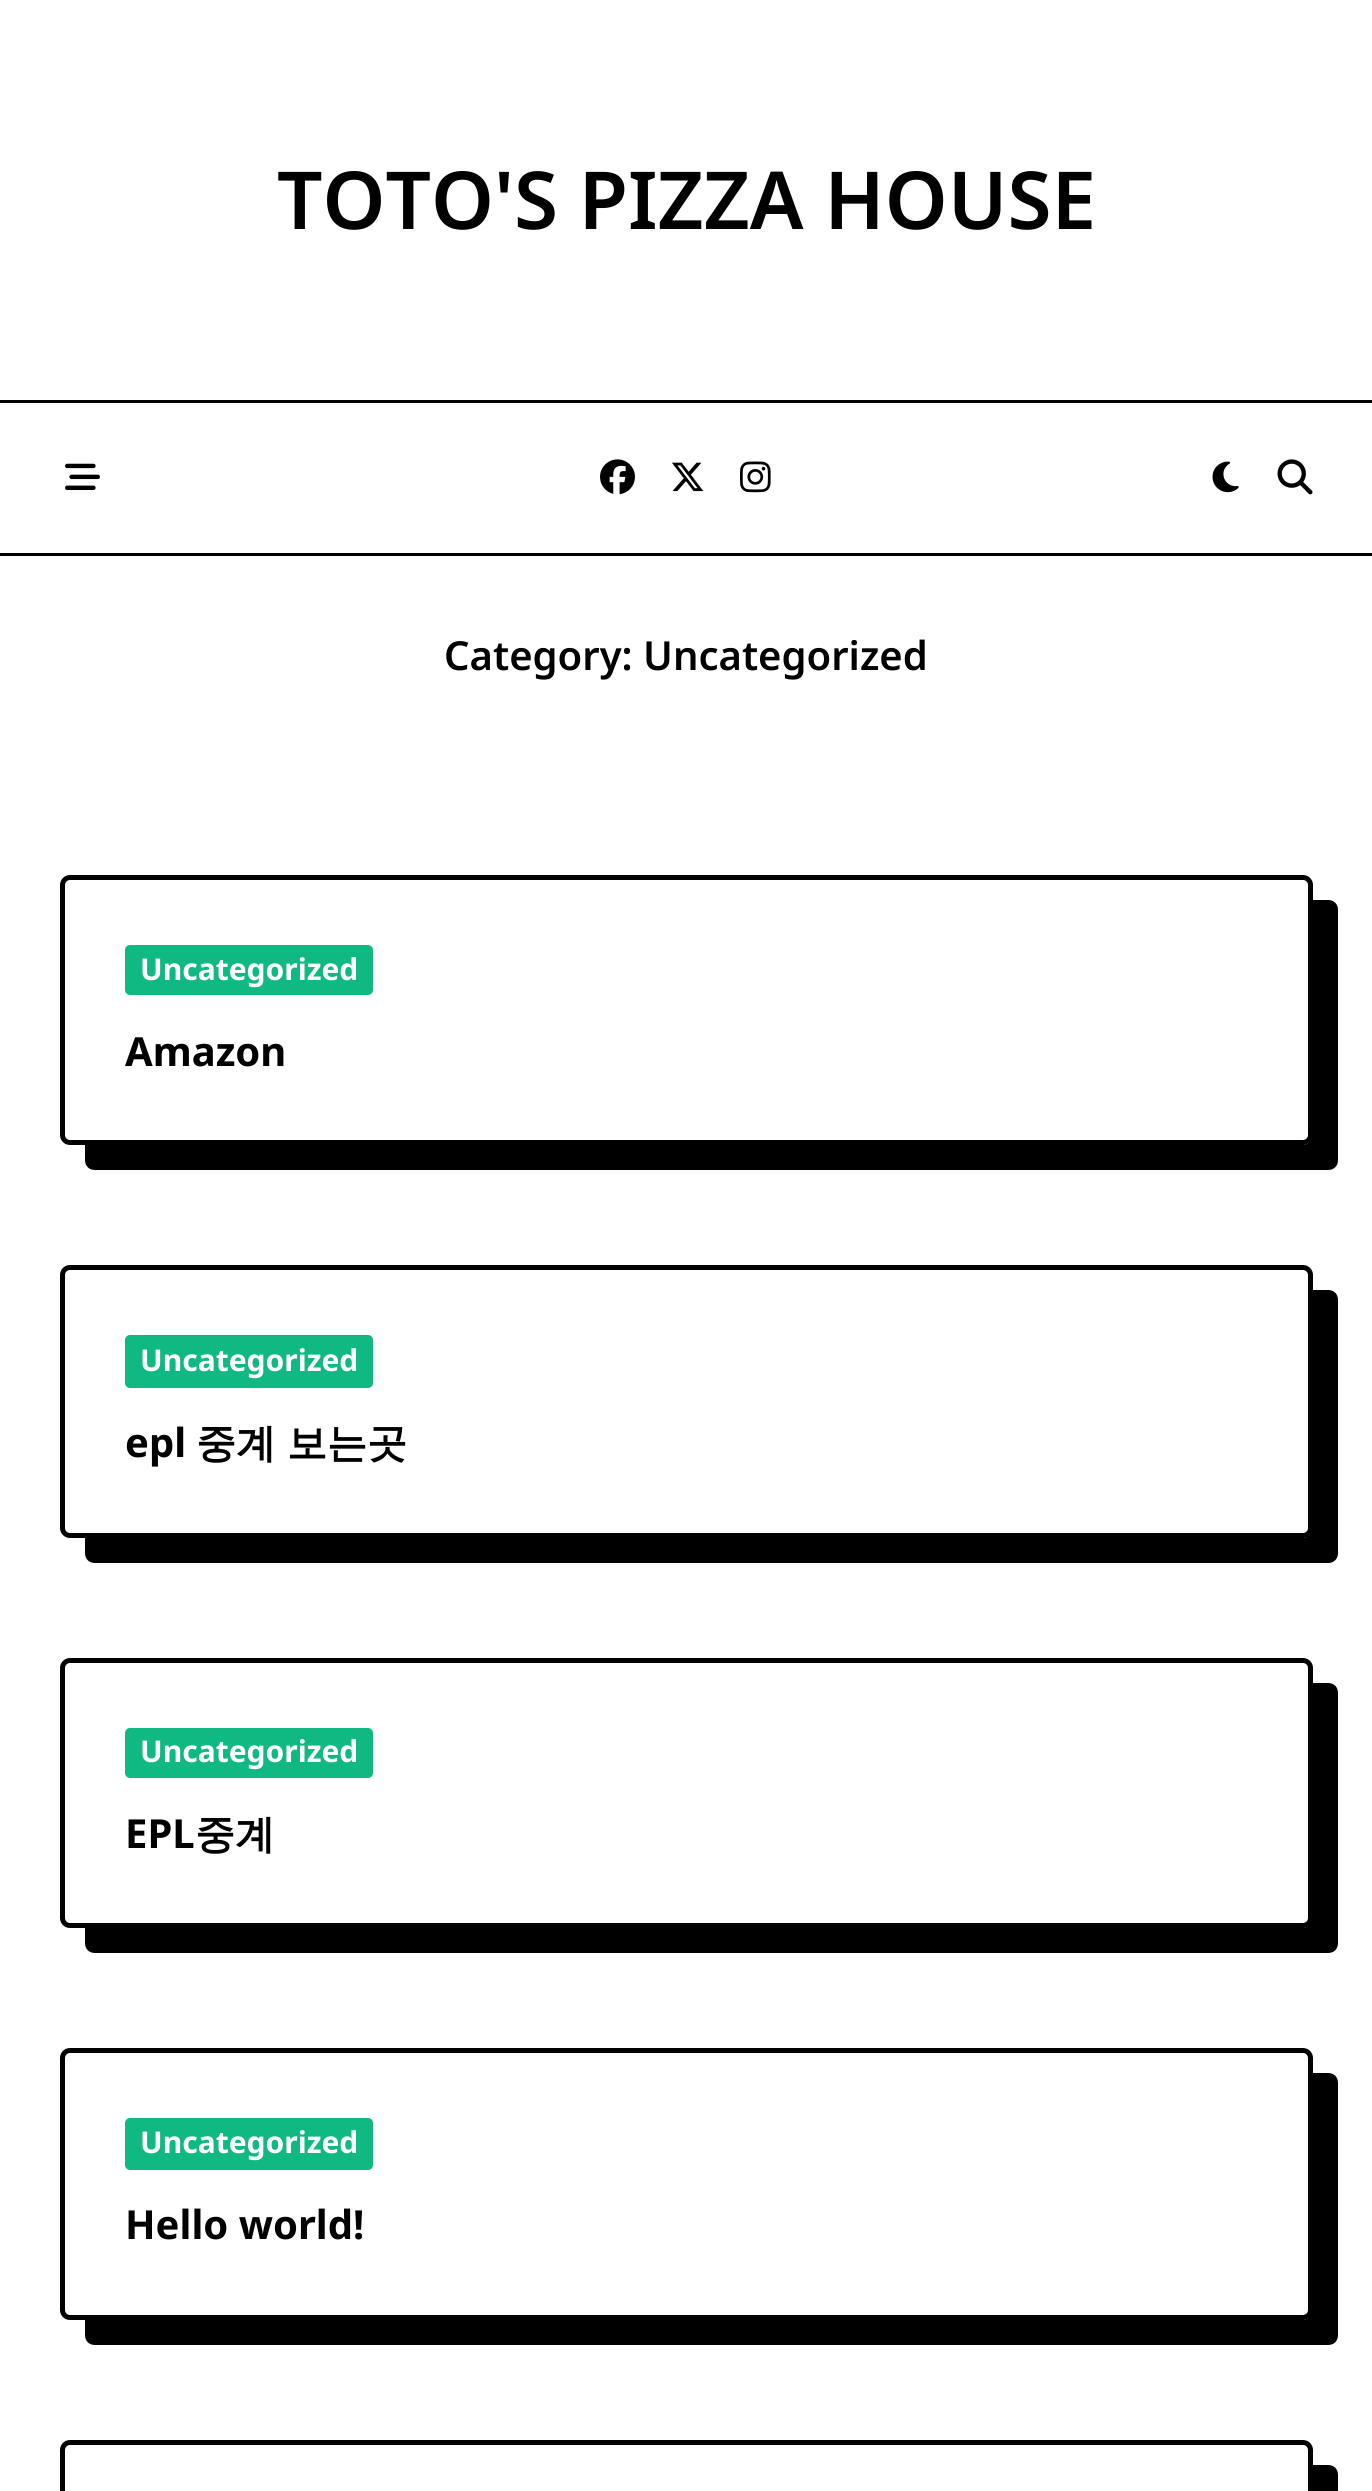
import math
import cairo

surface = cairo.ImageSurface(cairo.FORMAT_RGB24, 1372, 2491)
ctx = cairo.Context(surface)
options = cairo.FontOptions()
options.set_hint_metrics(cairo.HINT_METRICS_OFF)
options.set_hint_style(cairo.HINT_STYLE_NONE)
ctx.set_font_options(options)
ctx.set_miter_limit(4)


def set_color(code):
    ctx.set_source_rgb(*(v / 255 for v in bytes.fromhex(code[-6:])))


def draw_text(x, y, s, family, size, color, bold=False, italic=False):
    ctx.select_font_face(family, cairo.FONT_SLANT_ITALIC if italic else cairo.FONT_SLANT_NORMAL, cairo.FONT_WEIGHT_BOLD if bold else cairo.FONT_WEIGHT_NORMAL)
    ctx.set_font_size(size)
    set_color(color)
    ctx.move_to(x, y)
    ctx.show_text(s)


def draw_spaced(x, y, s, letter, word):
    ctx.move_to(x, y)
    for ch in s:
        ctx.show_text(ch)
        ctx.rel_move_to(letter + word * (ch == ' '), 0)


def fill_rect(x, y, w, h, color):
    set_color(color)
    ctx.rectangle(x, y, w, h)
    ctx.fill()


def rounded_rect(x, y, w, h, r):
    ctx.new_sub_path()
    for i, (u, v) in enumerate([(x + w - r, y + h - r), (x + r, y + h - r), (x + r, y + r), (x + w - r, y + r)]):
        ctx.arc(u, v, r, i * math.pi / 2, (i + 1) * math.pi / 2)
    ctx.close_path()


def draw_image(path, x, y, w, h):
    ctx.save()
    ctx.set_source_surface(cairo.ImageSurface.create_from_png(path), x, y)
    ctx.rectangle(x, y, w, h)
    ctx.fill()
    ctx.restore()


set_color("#ffffff")
ctx.paint()
draw_text(277, 229, "TOTO'S PIZZA HOUSE", "Noto Sans SemiBold", 80, "#000000")
fill_rect(0, 400, 1372, 3, "#000000")
fill_rect(0, 553, 1372, 3, "#000000")
draw_image("assets/img1.png", 65, 463, 35, 27)
draw_image("assets/img2.png", 600, 459, 35, 36)
draw_image("assets/img3.png", 672, 462, 32, 30)
draw_image("assets/img4.png", 740, 461, 31, 32)
draw_image("assets/img5.png", 1212, 461, 27, 32)
draw_image("assets/img6.png", 1277, 459, 36, 36)
draw_text(444, 670, "Category: Uncategorized", "Noto Sans SemiBold", 40, "#000000")
ctx.new_path()
ctx.move_to(85, 1145)
ctx.line_to(85, 1160)
ctx.curve_to(85, 1166, 89, 1170, 95, 1170)
ctx.line_to(1328, 1170)
ctx.curve_to(1334, 1170, 1338, 1166, 1338, 1160)
ctx.line_to(1338, 910)
ctx.curve_to(1338, 904, 1334, 900, 1328, 900)
ctx.line_to(1312, 900)
ctx.line_to(1312, 1135)
ctx.curve_to(1312, 1141, 1308, 1145, 1302, 1145)
ctx.close_path()
ctx.fill()
set_color("#ffffff")
rounded_rect(62.5, 877.5, 1248, 265, 7.5)
ctx.fill_preserve()
set_color("#000000")
ctx.set_line_width(5)
ctx.stroke()
set_color("#10b981")
rounded_rect(125, 945, 248, 50, 5)
ctx.fill()
draw_text(140, 980, "Uncategorized", "Noto Sans", 30, "#ffffff", bold=True)
draw_text(125, 1066, "Amazon", "Noto Sans", 40, "#000000", bold=True)
ctx.new_path()
ctx.move_to(85, 1538)
ctx.line_to(85, 1553)
ctx.curve_to(85, 1559, 89, 1563, 95, 1563)
ctx.line_to(1328, 1563)
ctx.curve_to(1334, 1563, 1338, 1559, 1338, 1553)
ctx.line_to(1338, 1300)
ctx.curve_to(1338, 1294, 1334, 1290, 1328, 1290)
ctx.line_to(1312, 1290)
ctx.line_to(1312, 1528)
ctx.curve_to(1312, 1533, 1308, 1538, 1302, 1538)
ctx.close_path()
ctx.fill()
set_color("#ffffff")
rounded_rect(62.5, 1267.5, 1248, 268, 7.5)
ctx.fill_preserve()
set_color("#000000")
ctx.stroke()
set_color("#10b981")
rounded_rect(125, 1335, 248, 53, 5)
ctx.fill()
draw_text(140, 1371, "Uncategorized", "Noto Sans", 30, "#ffffff", bold=True)
draw_text(125, 1457, "epl", "Noto Sans", 40, "#000000", bold=True)
ctx.select_font_face("WenQuanYi Zen Hei", cairo.FONT_SLANT_NORMAL, cairo.FONT_WEIGHT_BOLD)
draw_spaced(196, 1457, "중계 보는곳", 0, -1)
ctx.new_path()
ctx.move_to(85, 1928)
ctx.line_to(85, 1943)
ctx.curve_to(85, 1949, 89, 1953, 95, 1953)
ctx.line_to(1328, 1953)
ctx.curve_to(1334, 1953, 1338, 1949, 1338, 1943)
ctx.line_to(1338, 1693)
ctx.curve_to(1338, 1687, 1334, 1683, 1328, 1683)
ctx.line_to(1312, 1683)
ctx.line_to(1312, 1918)
ctx.curve_to(1312, 1923, 1308, 1928, 1302, 1928)
ctx.close_path()
ctx.fill()
set_color("#ffffff")
rounded_rect(62.5, 1660.5, 1248, 265, 7.5)
ctx.fill_preserve()
set_color("#000000")
ctx.stroke()
set_color("#10b981")
rounded_rect(125, 1728, 248, 50, 5)
ctx.fill()
draw_text(140, 1762, "Uncategorized", "Noto Sans", 30, "#ffffff", bold=True)
draw_text(125, 1848, "EPL", "Noto Sans", 40, "#000000", bold=True)
draw_text(195, 1848, "중계", "WenQuanYi Zen Hei", 40, "#000000", bold=True)
ctx.new_path()
ctx.move_to(85, 2320)
ctx.line_to(85, 2335)
ctx.curve_to(85, 2341, 89, 2345, 95, 2345)
ctx.line_to(1328, 2345)
ctx.curve_to(1334, 2345, 1338, 2341, 1338, 2335)
ctx.line_to(1338, 2083)
ctx.curve_to(1338, 2077, 1334, 2073, 1328, 2073)
ctx.line_to(1312, 2073)
ctx.line_to(1312, 2310)
ctx.curve_to(1312, 2316, 1308, 2320, 1302, 2320)
ctx.close_path()
ctx.fill()
set_color("#ffffff")
rounded_rect(62.5, 2050.5, 1248, 267, 7.5)
ctx.fill_preserve()
set_color("#000000")
ctx.stroke()
set_color("#10b981")
rounded_rect(125, 2118, 248, 52, 5)
ctx.fill()
draw_text(140, 2153, "Uncategorized", "Noto Sans", 30, "#ffffff", bold=True)
draw_text(125, 2239, "Hello world!", "Noto Sans", 40, "#000000", bold=True)
ctx.new_path()
ctx.move_to(85, 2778)
ctx.line_to(85, 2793)
ctx.curve_to(85, 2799, 89, 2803, 95, 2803)
ctx.line_to(1328, 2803)
ctx.curve_to(1334, 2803, 1338, 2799, 1338, 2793)
ctx.line_to(1338, 2475)
ctx.curve_to(1338, 2469, 1334, 2465, 1328, 2465)
ctx.line_to(1312, 2465)
ctx.line_to(1312, 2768)
ctx.curve_to(1312, 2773, 1308, 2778, 1302, 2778)
ctx.close_path()
ctx.fill()
set_color("#ffffff")
rounded_rect(62.5, 2442.5, 1248, 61, 7.5)
ctx.fill_preserve()
set_color("#000000")
ctx.stroke()
surface.write_to_png("output.png")
